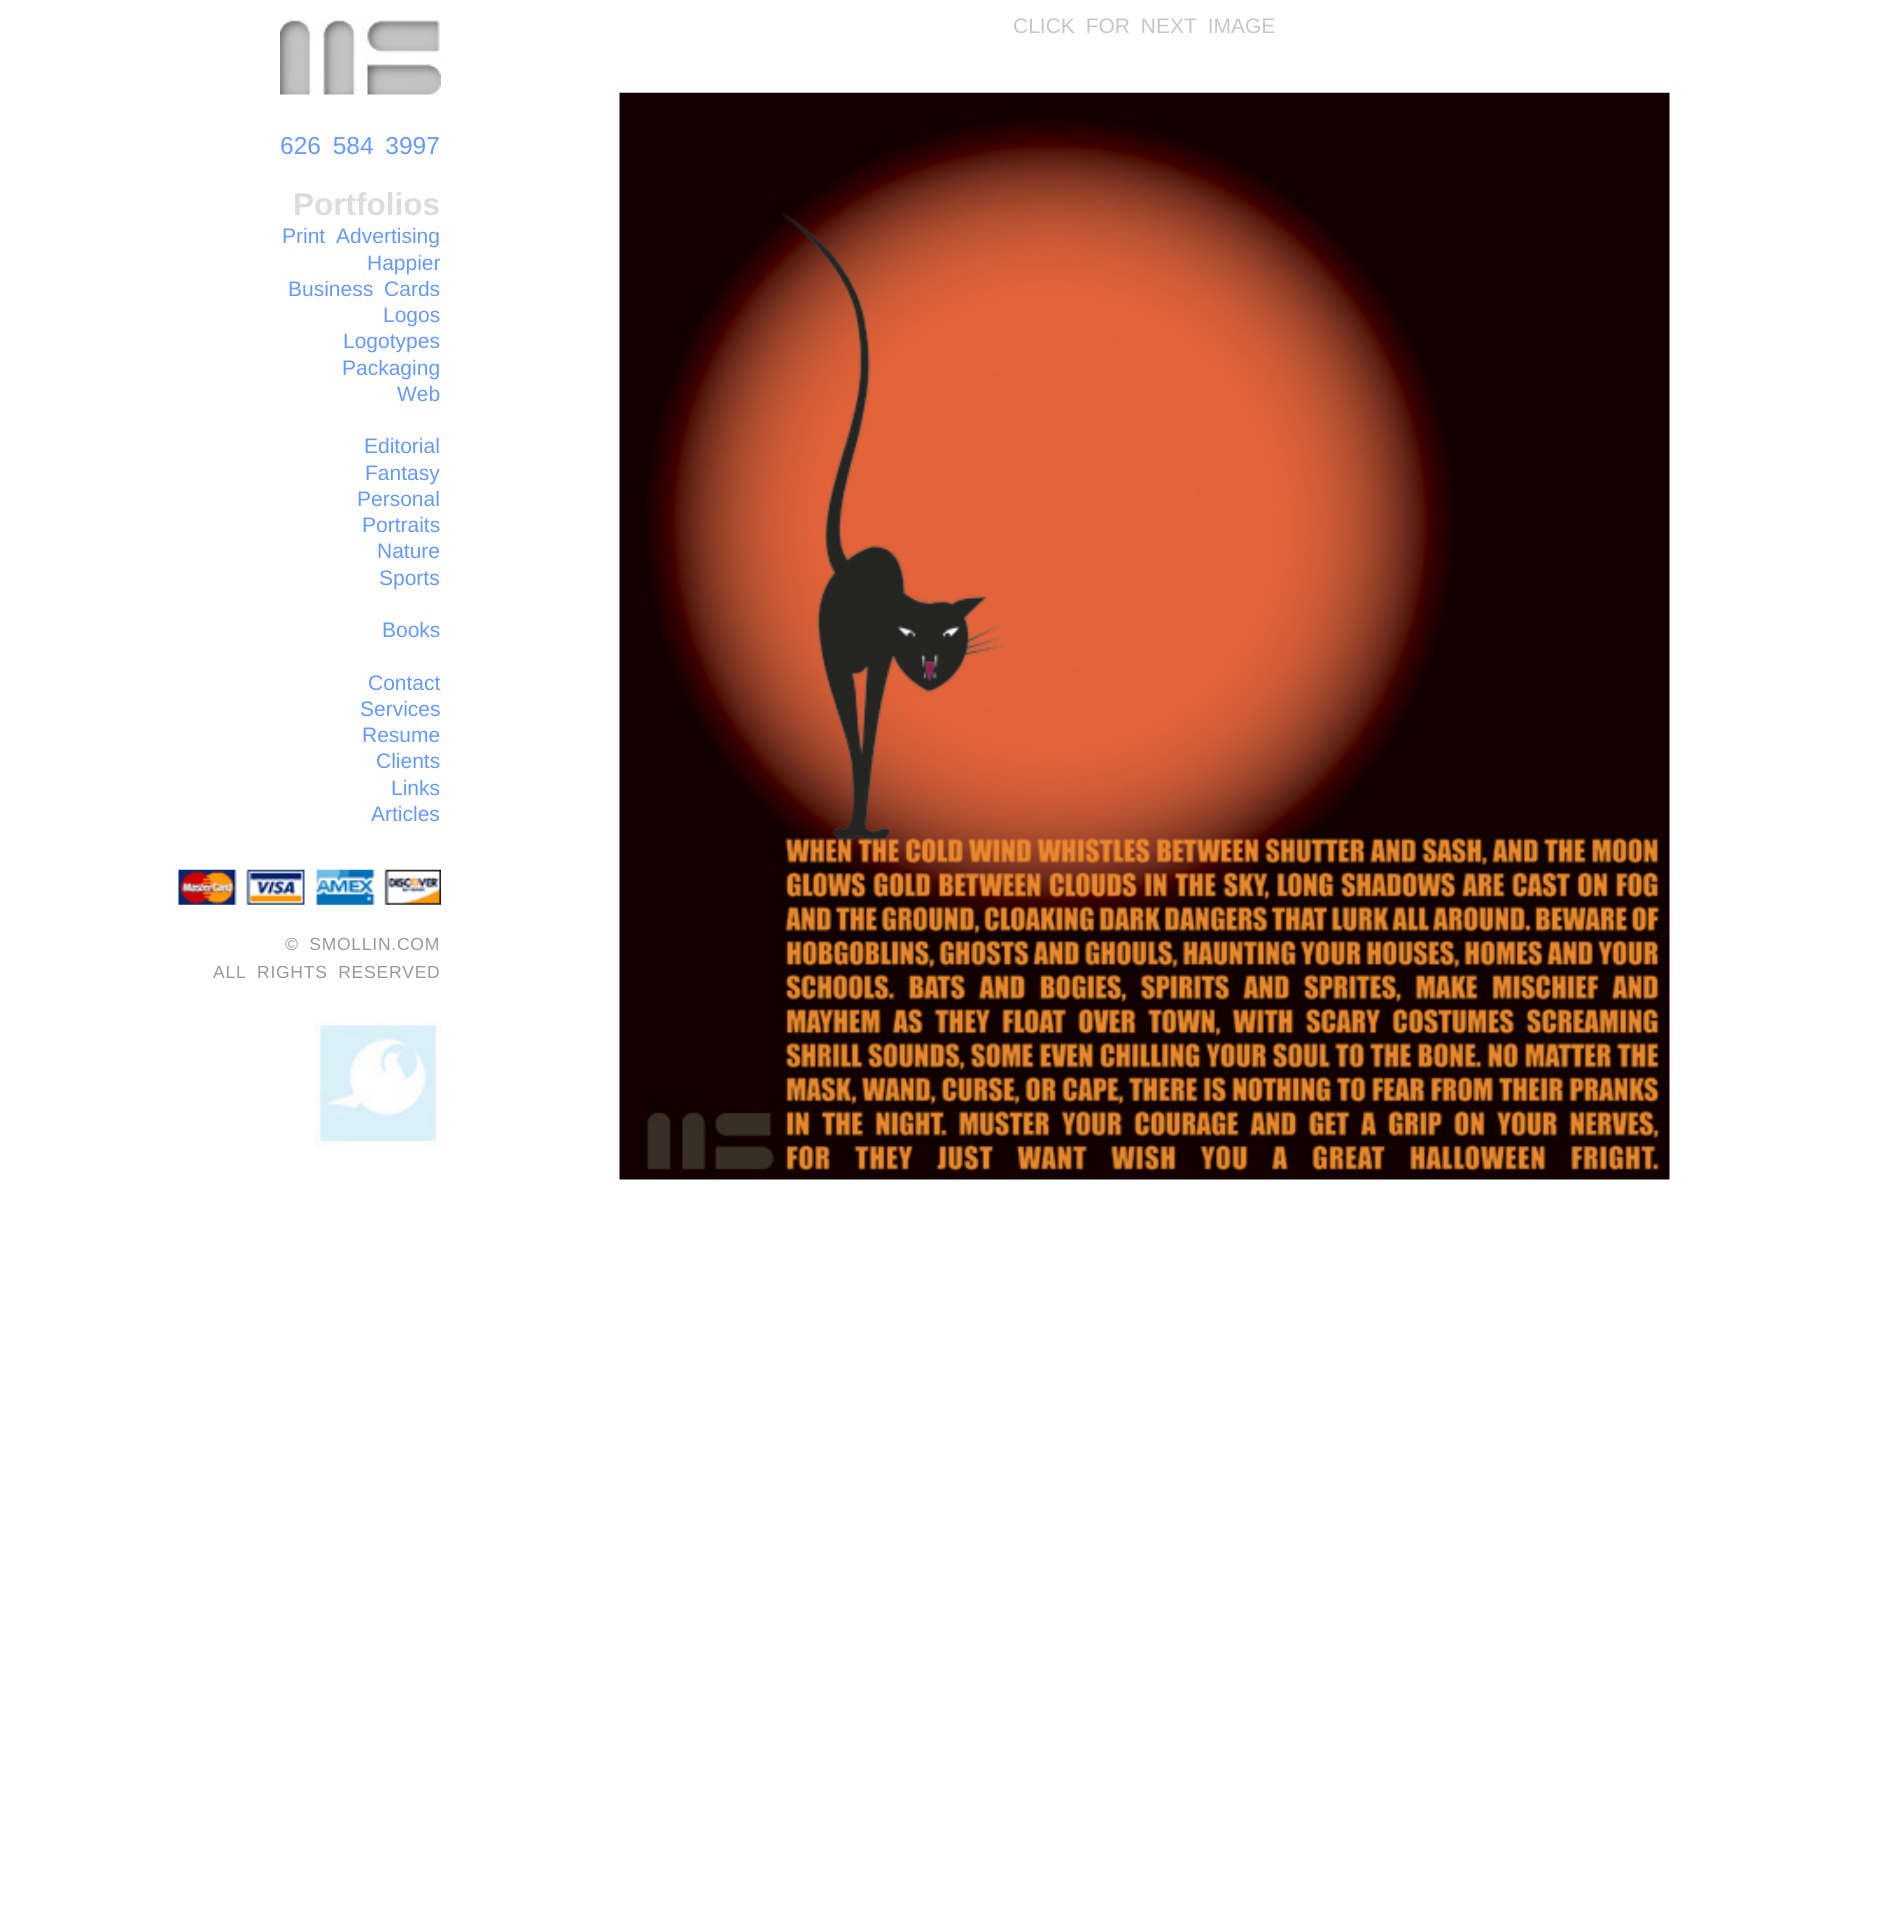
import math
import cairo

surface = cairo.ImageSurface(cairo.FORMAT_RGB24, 1903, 1909)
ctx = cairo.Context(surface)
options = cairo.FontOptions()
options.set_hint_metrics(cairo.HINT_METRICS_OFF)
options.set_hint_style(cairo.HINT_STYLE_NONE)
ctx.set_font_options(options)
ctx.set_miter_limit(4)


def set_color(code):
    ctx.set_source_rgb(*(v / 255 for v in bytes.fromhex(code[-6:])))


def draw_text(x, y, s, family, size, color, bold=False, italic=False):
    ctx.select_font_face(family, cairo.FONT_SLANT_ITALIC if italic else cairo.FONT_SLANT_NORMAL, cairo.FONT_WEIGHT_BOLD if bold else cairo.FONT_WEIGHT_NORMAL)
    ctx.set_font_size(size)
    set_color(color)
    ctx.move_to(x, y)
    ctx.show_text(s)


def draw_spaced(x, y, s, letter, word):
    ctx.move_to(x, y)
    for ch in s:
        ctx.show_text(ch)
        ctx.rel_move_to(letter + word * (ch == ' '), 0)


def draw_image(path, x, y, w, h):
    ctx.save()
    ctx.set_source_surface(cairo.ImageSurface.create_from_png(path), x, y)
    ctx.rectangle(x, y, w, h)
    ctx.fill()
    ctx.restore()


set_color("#ffffff")
ctx.paint()
ctx.select_font_face("Liberation Sans")
ctx.set_font_size(21)
set_color("#c7c7c7")
draw_spaced(1013, 33, "CLICK FOR NEXT IMAGE", 0, 5)
draw_image("assets/img1.png", 619, 92, 1051, 1088)
draw_image("assets/img2.png", 280, 18, 161, 78)
ctx.set_font_size(24.5)
set_color("#6699ff")
draw_spaced(280, 154, "626 584 3997", 0, 5)
draw_text(293, 215, "Portfolios", "Liberation Sans", 31.5, "#dcdcdc", bold=True)
ctx.select_font_face("Liberation Sans")
ctx.set_font_size(21)
set_color("#6699ff")
draw_spaced(282, 243, "Print Advertising", 0, 5)
draw_text(367, 270, "Happier", "Liberation Sans", 21, "#6699ff")
draw_spaced(288, 296, "Business Cards", 0, 5)
draw_text(383, 322, "Logos", "Liberation Sans", 21, "#6699ff")
draw_text(343, 348, "Logotypes", "Liberation Sans", 21, "#6699ff")
draw_text(342, 375, "Packaging", "Liberation Sans", 21, "#6699ff")
draw_text(397, 401, "Web", "Liberation Sans", 21, "#6699ff")
draw_text(364, 453, "Editorial", "Liberation Sans", 21, "#6699ff")
draw_text(365, 480, "Fantasy", "Liberation Sans", 21, "#6699ff")
draw_text(357, 506, "Personal", "Liberation Sans", 21, "#6699ff")
draw_text(362, 532, "Portraits", "Liberation Sans", 21, "#6699ff")
draw_text(377, 558, "Nature", "Liberation Sans", 21, "#6699ff")
draw_text(379, 585, "Sports", "Liberation Sans", 21, "#6699ff")
draw_text(382, 637, "Books", "Liberation Sans", 21, "#6699ff")
draw_text(368, 690, "Contact", "Liberation Sans", 21, "#6699ff")
draw_text(360, 716, "Services", "Liberation Sans", 21, "#6699ff")
draw_text(362, 742, "Resume", "Liberation Sans", 21, "#6699ff")
draw_text(376, 768, "Clients", "Liberation Sans", 21, "#6699ff")
draw_text(391, 795, "Links", "Liberation Sans", 21, "#6699ff")
draw_text(371, 821, "Articles", "Liberation Sans", 21, "#6699ff")
draw_image("assets/img3.png", 178, 869, 263, 36)
ctx.set_font_size(17.5)
set_color("#999999")
draw_spaced(285, 950, "© SMOLLIN.COM", 0.75, 5)
draw_spaced(213, 978, "ALL RIGHTS RESERVED", 0.75, 5)
draw_image("assets/img4.png", 315, 1022, 126, 126)
surface.write_to_png("output.png")
